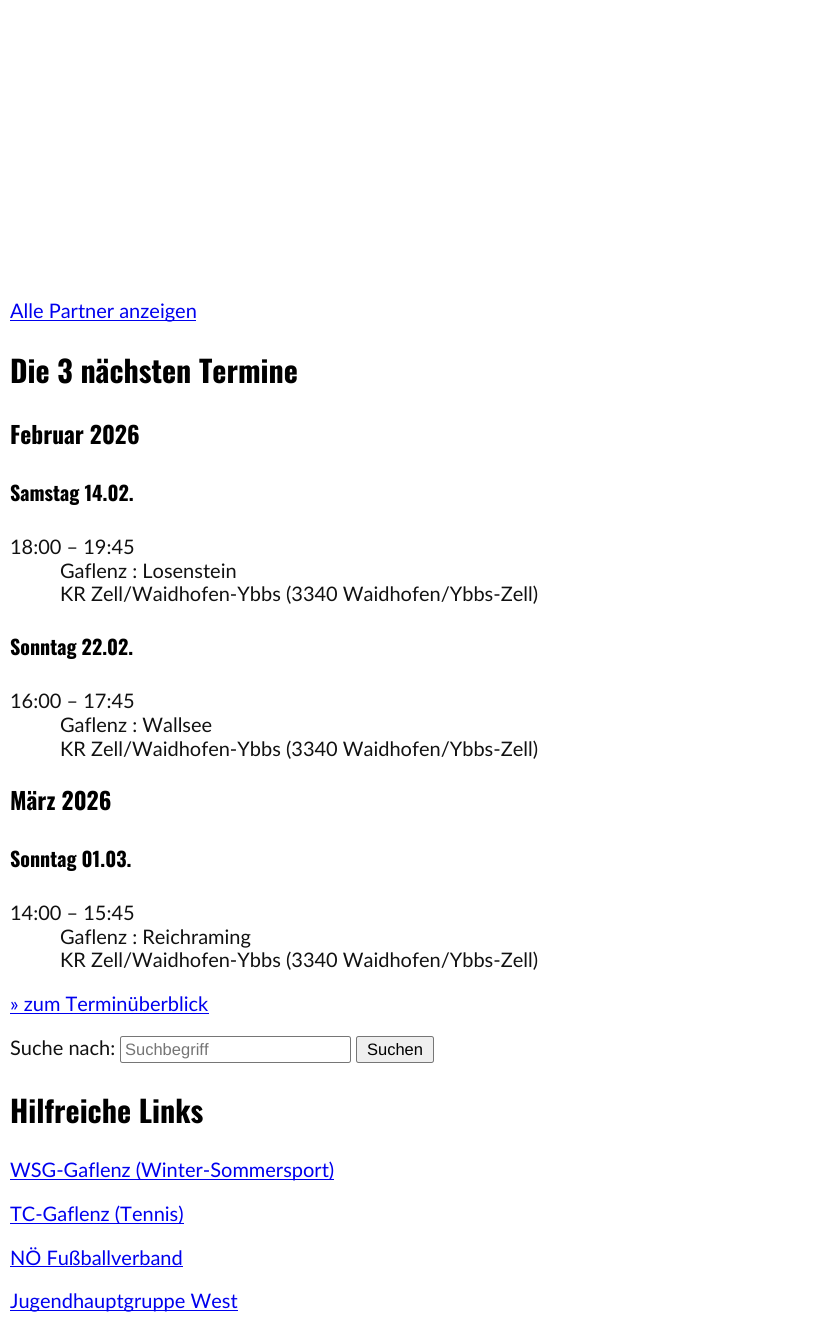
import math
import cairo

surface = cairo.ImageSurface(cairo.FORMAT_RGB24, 832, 1338)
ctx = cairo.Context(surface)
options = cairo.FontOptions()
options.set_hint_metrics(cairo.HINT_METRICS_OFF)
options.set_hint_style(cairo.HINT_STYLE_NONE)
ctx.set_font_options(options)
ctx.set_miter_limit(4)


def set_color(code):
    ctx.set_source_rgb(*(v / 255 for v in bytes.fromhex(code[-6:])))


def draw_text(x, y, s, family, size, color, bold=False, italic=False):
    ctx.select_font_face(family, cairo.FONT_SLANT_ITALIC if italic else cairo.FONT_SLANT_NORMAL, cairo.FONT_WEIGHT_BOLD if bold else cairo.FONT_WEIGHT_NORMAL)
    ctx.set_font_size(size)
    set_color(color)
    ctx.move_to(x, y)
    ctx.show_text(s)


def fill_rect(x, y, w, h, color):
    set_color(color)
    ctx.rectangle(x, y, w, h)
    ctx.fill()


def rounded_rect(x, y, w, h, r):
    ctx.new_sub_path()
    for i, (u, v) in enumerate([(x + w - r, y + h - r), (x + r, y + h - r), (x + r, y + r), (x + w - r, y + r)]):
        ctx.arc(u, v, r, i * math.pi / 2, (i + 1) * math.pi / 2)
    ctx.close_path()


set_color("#ffffff")
ctx.paint()
fill_rect(10, 320, 186, 1, "#0000ee")
draw_text(10, 318, "Alle Partner anzeigen", "Lato", 20, "#0000ee")
draw_text(10, 383, "Die 3 nächsten Termine", "Oswald", 30, "#000000", bold=True)
draw_text(10, 444, "Februar 2026", "Oswald", 23.5, "#000000", bold=True)
draw_text(10, 501, "Samstag 14.02.", "Oswald", 20, "#000000", bold=True)
draw_text(10, 554, "18:00 – 19:45", "Lato", 20, "#111111")
draw_text(60, 578, "Gaflenz : Losenstein", "Lato", 20, "#111111")
draw_text(60, 601, "KR Zell/Waidhofen-Ybbs (3340 Waidhofen/Ybbs-Zell)", "Lato", 20, "#111111")
draw_text(10, 655, "Sonntag 22.02.", "Oswald", 20, "#000000", bold=True)
draw_text(10, 708, "16:00 – 17:45", "Lato", 20, "#111111")
draw_text(60, 732, "Gaflenz : Wallsee", "Lato", 20, "#111111")
draw_text(60, 756, "KR Zell/Waidhofen-Ybbs (3340 Waidhofen/Ybbs-Zell)", "Lato", 20, "#111111")
draw_text(10, 810, "März 2026", "Oswald", 23.5, "#000000", bold=True)
draw_text(10, 867, "Sonntag 01.03.", "Oswald", 20, "#000000", bold=True)
draw_text(10, 920, "14:00 – 15:45", "Lato", 20, "#111111")
draw_text(60, 944, "Gaflenz : Reichraming", "Lato", 20, "#111111")
draw_text(60, 967, "KR Zell/Waidhofen-Ybbs (3340 Waidhofen/Ybbs-Zell)", "Lato", 20, "#111111")
draw_text(10, 1011, "» zum Terminüberblick", "Lato", 20, "#0000ee")
fill_rect(10, 1013, 199, 1, "#0000ee")
draw_text(10, 1055, "Suche nach:", "Lato", 20, "#111111")
rounded_rect(120.5, 1036.5, 230, 26, 2)
set_color("#767676")
ctx.set_line_width(1)
ctx.stroke()
draw_text(125, 1055, "Suchbegriff", "Liberation Sans", 16.5, "#757575")
set_color("#efefef")
rounded_rect(356.5, 1036.5, 77, 26, 2)
ctx.fill_preserve()
set_color("#767676")
ctx.stroke()
draw_text(367, 1055, "Suchen", "Liberation Sans", 16.5, "#000000")
draw_text(10, 1123, "Hilfreiche Links", "Oswald", 30, "#000000", bold=True)
fill_rect(10, 1179, 324, 1, "#0000ee")
draw_text(10, 1177, "WSG-Gaflenz (Winter-Sommersport)", "Lato", 20, "#0000ee")
fill_rect(10, 1223, 174, 1, "#0000ee")
draw_text(10, 1221, "TC-Gaflenz (Tennis)", "Lato", 20, "#0000ee")
draw_text(10, 1265, "NÖ Fußballverband", "Lato", 20, "#0000ee")
fill_rect(10, 1266, 173, 1, "#0000ee")
fill_rect(10, 1310, 228, 1, "#0000ee")
draw_text(10, 1308, "Jugendhauptgruppe West", "Lato", 20, "#0000ee")
surface.write_to_png("output.png")
